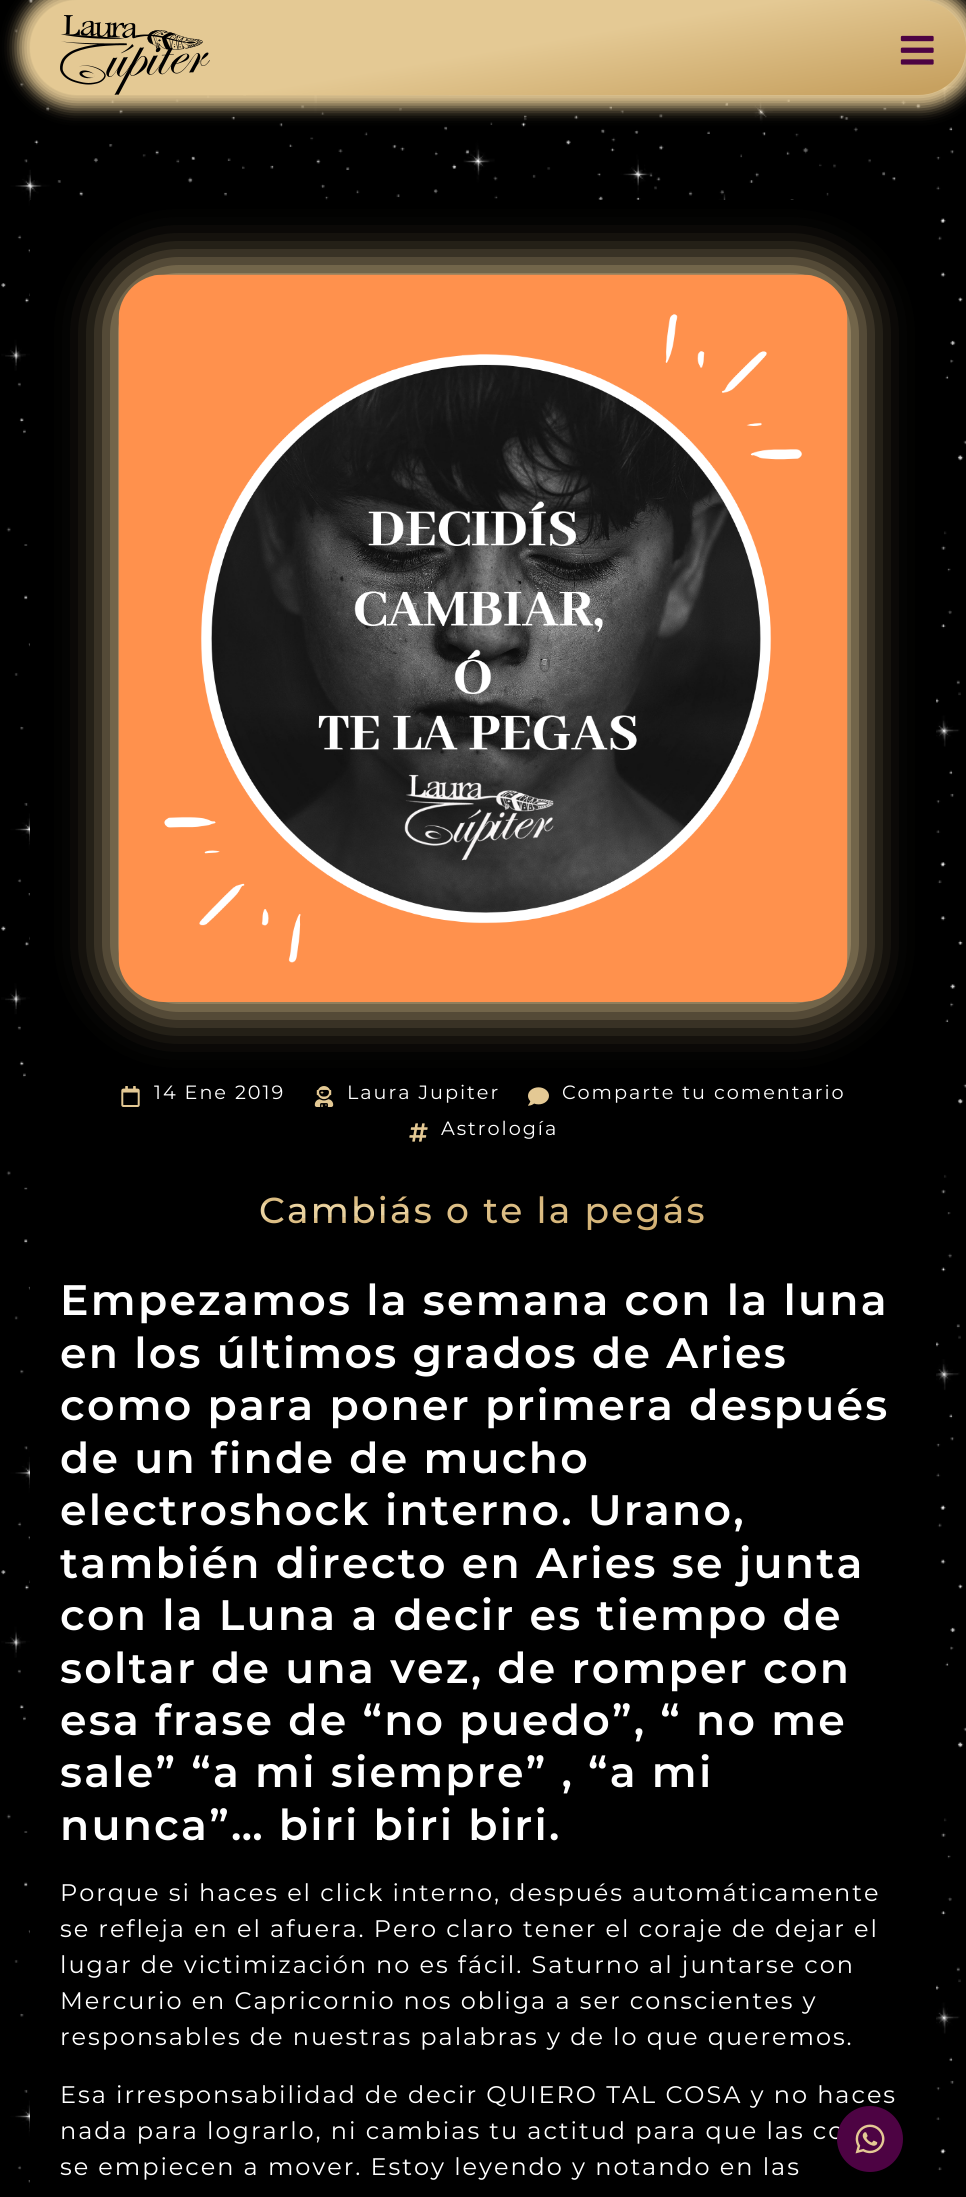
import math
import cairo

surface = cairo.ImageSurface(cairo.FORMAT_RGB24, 966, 2197)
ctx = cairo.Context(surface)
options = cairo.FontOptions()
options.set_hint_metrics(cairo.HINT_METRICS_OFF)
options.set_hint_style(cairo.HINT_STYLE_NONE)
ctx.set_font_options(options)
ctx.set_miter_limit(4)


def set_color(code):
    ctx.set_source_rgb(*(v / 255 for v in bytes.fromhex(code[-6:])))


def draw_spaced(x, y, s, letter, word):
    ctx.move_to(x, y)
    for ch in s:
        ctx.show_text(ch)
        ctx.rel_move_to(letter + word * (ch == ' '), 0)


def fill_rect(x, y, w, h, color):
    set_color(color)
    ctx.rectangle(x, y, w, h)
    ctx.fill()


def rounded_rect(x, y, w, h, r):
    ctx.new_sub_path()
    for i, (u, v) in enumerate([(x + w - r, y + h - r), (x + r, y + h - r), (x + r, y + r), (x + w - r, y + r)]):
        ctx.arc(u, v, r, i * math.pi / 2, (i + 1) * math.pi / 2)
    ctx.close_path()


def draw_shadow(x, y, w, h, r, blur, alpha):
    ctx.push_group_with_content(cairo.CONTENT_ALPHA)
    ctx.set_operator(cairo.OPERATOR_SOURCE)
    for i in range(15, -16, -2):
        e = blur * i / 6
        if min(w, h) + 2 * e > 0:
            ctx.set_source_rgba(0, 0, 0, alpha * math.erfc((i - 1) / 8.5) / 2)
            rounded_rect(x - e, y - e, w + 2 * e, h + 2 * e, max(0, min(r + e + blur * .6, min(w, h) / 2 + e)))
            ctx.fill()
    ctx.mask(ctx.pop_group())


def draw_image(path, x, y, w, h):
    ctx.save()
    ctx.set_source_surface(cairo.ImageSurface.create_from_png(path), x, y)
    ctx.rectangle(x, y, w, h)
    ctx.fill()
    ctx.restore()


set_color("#000000")
ctx.paint()
draw_image("assets/img1.png", 1, 0, 965, 2183)
set_color("#e4c994")
draw_shadow(18, -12, 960, 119, 59.5, 7.5, 1)
gradient = cairo.LinearGradient(476, -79, 520, 173)
gradient.add_color_stop_rgba(0.51, 0.894, 0.788, 0.58, 1)
gradient.add_color_stop_rgba(0.95, 0.78, 0.631, 0.376, 1)
ctx.set_source(gradient)
rounded_rect(30, 0, 936, 95, 47.5)
ctx.fill()
draw_image("assets/img2.png", 60, 15, 150, 80)
draw_image("assets/img3.png", 900, 35, 34, 30)
fill_rect(30, 200, 906, 1983, "#000000")
set_color("#e4c994")
draw_shadow(114, 269, 741, 739, 51, 24, 1)
draw_image("assets/img4.png", 118, 274, 730, 728)
draw_image("assets/img5.png", 121, 1086, 19, 21)
ctx.select_font_face("Montserrat")
ctx.set_font_size(19.25)
set_color("#ffffff")
draw_spaced(154, 1099, "14 Ene 2019", 1.95, 0)
draw_image("assets/img6.png", 314, 1086, 20, 21)
draw_spaced(347, 1099, "Laura Jupiter", 1.95, 0)
draw_image("assets/img7.png", 528, 1087, 21, 19)
draw_spaced(562, 1099, "Comparte tu comentario", 1.95, 0)
draw_image("assets/img8.png", 409, 1123, 19, 19)
draw_spaced(441, 1135, "Astrología", 1.95, 0)
ctx.select_font_face("Montserrat Medium")
ctx.set_font_size(36)
gradient = cairo.RadialGradient(0, 0, 0, 0, 0, 1)
gradient.set_matrix(cairo.Matrix(1 / 1196, 0, 0, 1 / 31, -1 * 60 / 1196, -1 * 1211 / 31))
gradient.add_color_stop_rgba(0.3, 0.914, 0.824, 0.627, 1)
gradient.add_color_stop_rgba(0.3, 0.894, 0.788, 0.58, 1)
gradient.add_color_stop_rgba(0.3, 0.875, 0.761, 0.541, 1)
gradient.add_color_stop_rgba(1, 0.78, 0.631, 0.376, 1)
ctx.set_source(gradient)
draw_spaced(259, 1223, "Cambiás o te la pegás", 2.25, 0)
ctx.select_font_face("Montserrat SemiBold")
ctx.set_font_size(42.6)
set_color("#ffffff")
draw_spaced(60, 1315, "Empezamos la semana con la luna", 2.25, 0)
draw_spaced(60, 1368, "en los últimos grados de Aries", 2.25, 0)
draw_spaced(60, 1420, "como para poner primera después", 2.25, 0)
draw_spaced(60, 1473, "de un finde de mucho", 2.25, 0)
draw_spaced(60, 1525, "electroshock interno. Urano,", 2.25, 0)
draw_spaced(60, 1578, "también directo en Aries se junta", 2.25, 0)
draw_spaced(60, 1630, "con la Luna a decir es tiempo de", 2.25, 0)
draw_spaced(60, 1683, "soltar de una vez, de romper con", 2.25, 0)
draw_spaced(60, 1735, "esa frase de “no puedo”, “ no me", 2.25, 0)
draw_spaced(60, 1787, "sale” “a mi siempre” , “a mi", 2.25, 0)
draw_spaced(60, 1840, "nunca”… biri biri biri.", 2.25, 0)
ctx.select_font_face("Montserrat")
ctx.set_font_size(24)
draw_spaced(60, 1901, "Porque si haces el click interno, después automáticamente", 1.95, 0)
draw_spaced(60, 1937, "se refleja en el afuera. Pero claro tener el coraje de dejar el", 1.95, 0)
draw_spaced(60, 1973, "lugar de victimización no es fácil. Saturno al juntarse con", 1.95, 0)
draw_spaced(60, 2009, "Mercurio en Capricornio nos obliga a ser conscientes y", 1.95, 0)
draw_spaced(60, 2045, "responsables de nuestras palabras y de lo que queremos.", 1.95, 0)
draw_spaced(60, 2103, "Esa irresponsabilidad de decir QUIERO TAL COSA y no haces", 1.95, 0)
draw_spaced(60, 2139, "nada para lograrlo, ni cambias tu actitud para que las co", 1.95, 0)
draw_spaced(60, 2175, "se empiecen a mover. Estoy leyendo y notando en las", 1.95, 0)
set_color("#4d0343")
ctx.new_path()
ctx.arc(870, 2139, 33, 0, 2 * math.pi)
ctx.fill()
draw_image("assets/img9.png", 855, 2124, 30, 30)
surface.write_to_png("output.png")
